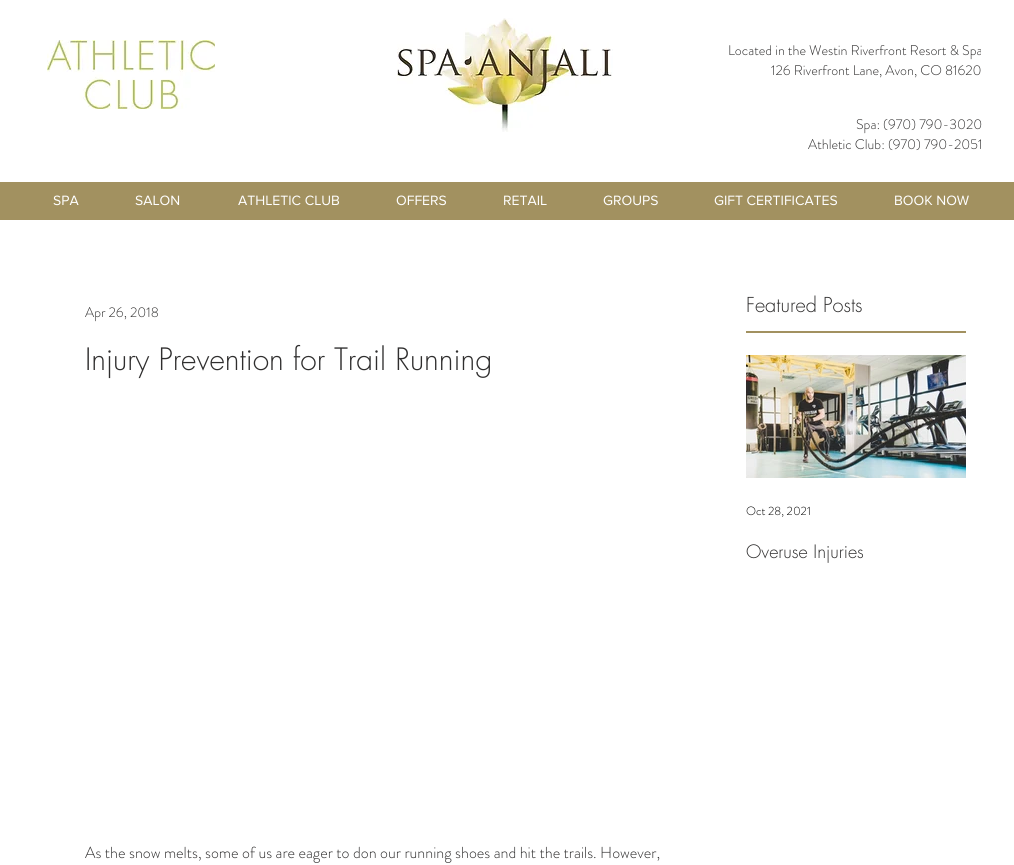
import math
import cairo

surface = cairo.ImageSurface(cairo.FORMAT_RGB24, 1014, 865)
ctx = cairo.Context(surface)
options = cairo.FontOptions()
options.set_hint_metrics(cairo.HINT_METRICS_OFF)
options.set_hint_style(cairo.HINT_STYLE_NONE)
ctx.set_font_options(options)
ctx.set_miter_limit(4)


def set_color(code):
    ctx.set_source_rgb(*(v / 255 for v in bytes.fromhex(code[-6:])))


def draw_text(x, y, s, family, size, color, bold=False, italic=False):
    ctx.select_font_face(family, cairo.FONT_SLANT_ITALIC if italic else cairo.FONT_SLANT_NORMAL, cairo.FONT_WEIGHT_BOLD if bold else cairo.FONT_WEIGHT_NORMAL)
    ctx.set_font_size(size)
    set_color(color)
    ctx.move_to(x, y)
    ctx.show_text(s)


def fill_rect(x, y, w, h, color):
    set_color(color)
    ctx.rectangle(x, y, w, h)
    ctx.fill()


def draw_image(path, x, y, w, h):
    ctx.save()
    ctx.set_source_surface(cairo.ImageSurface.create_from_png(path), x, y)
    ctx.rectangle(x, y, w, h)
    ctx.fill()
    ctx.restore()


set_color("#ffffff")
ctx.paint()
draw_image("assets/img1.png", 47, 40, 168, 69)
draw_image("assets/img2.png", 397, 18, 216, 114)
draw_text(728, 55, "Located in the Westin Riverfront Resort & Spa", "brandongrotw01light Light", 14, "#2f2e2e")
draw_text(771, 75, "126 Riverfront Lane, Avon, CO 81620", "brandongrotw01light Light", 14, "#2f2e2e")
draw_text(856, 129, "Spa: (970) 790-3020", "brandongrotw01light Light", 14, "#2f2e2e")
draw_text(808, 149, "Athletic Club: (970) 790-2051", "brandongrotw01light Light", 14, "#2f2e2e")
fill_rect(0, 182, 1014, 38, "#a29160")
draw_text(53, 205, "SPA", "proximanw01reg", 14, "#ffffff")
draw_text(135, 205, "SALON", "proximanw01reg", 14, "#ffffff")
draw_text(238, 205, "ATHLETIC CLUB", "proximanw01reg", 14, "#ffffff")
draw_text(396, 205, "OFFERS", "proximanw01reg", 14, "#ffffff")
draw_text(503, 205, "RETAIL", "proximanw01reg", 14, "#ffffff")
draw_text(603, 205, "GROUPS", "proximanw01reg", 14, "#ffffff")
draw_text(714, 205, "GIFT CERTIFICATES", "proximanw01reg", 14, "#ffffff")
draw_text(894, 205, "BOOK NOW", "proximanw01reg", 14, "#ffffff")
draw_text(746, 312, "Featured Posts", "futura Light", 20, "#2f2e2e")
fill_rect(746, 331, 220, 2, "#a29160")
draw_text(85, 317, "Apr 26, 2018", "brandongrotw01light Light", 14, "#2f2e2e")
draw_text(85, 370, "Injury Prevention for Trail Running", "futura Light", 30, "#2f2e2e")
draw_text(85, 858, "As the snow melts, some of us are eager to don our running shoes and hit the trails. However,", "brandongrotw01light Light", 16, "#2f2e2e")
draw_image("assets/img4.png", 746, 355, 220, 123)
draw_image("assets/img3.png", 926, 401, 17, 29)
draw_text(746, 515, "Oct 28, 2021", "brandongrotw01light Light", 12, "#000000")
draw_text(746, 558, "Overuse Injuries", "futura Light", 18, "#2f2e2e")
surface.write_to_png("output.png")
